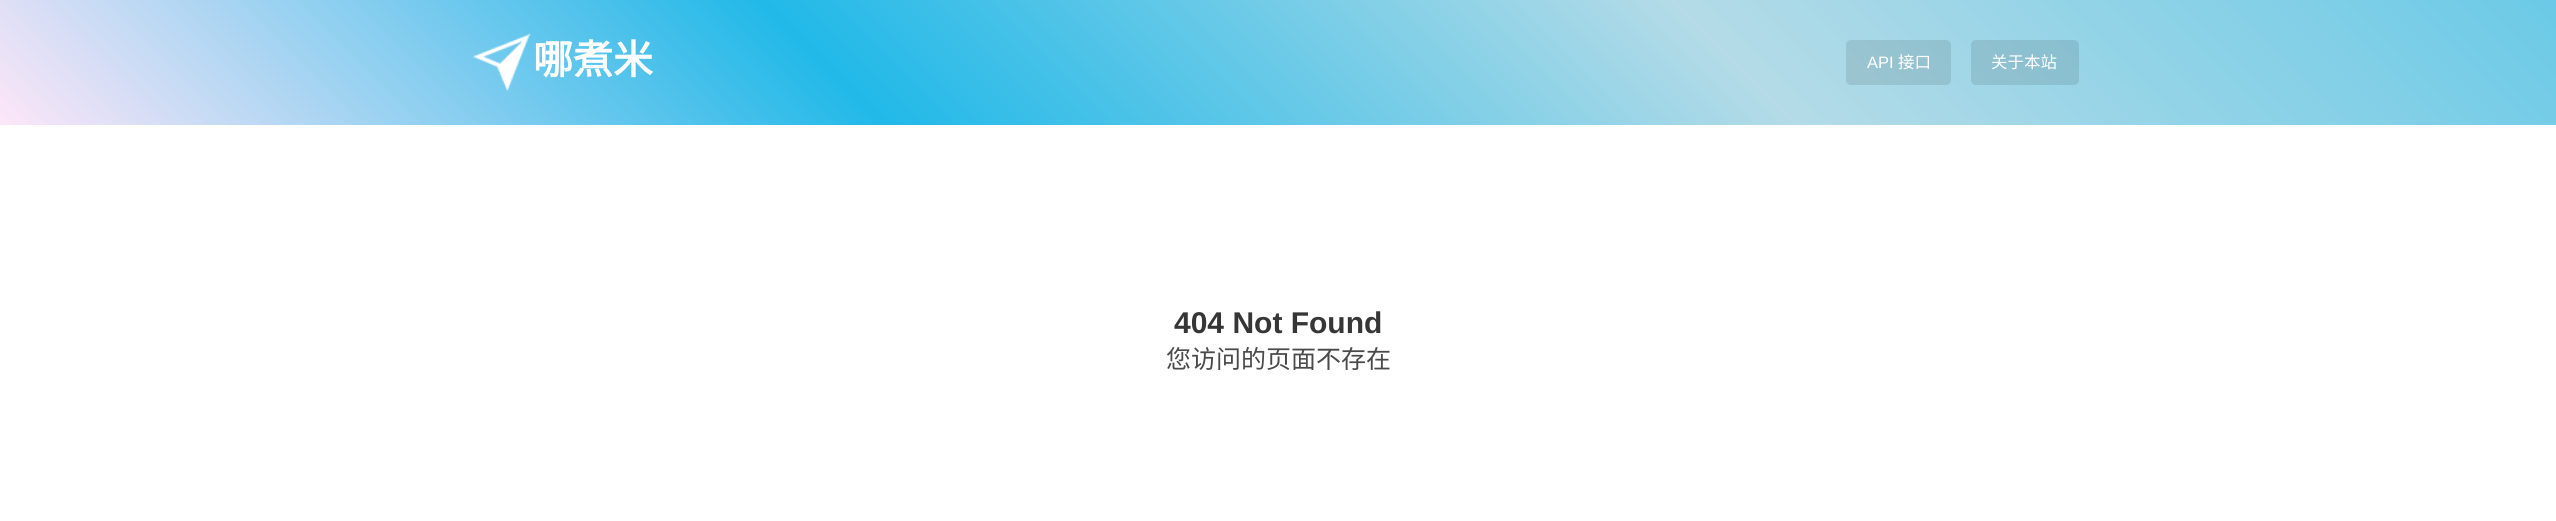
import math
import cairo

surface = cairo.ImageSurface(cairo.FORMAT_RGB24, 2556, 521)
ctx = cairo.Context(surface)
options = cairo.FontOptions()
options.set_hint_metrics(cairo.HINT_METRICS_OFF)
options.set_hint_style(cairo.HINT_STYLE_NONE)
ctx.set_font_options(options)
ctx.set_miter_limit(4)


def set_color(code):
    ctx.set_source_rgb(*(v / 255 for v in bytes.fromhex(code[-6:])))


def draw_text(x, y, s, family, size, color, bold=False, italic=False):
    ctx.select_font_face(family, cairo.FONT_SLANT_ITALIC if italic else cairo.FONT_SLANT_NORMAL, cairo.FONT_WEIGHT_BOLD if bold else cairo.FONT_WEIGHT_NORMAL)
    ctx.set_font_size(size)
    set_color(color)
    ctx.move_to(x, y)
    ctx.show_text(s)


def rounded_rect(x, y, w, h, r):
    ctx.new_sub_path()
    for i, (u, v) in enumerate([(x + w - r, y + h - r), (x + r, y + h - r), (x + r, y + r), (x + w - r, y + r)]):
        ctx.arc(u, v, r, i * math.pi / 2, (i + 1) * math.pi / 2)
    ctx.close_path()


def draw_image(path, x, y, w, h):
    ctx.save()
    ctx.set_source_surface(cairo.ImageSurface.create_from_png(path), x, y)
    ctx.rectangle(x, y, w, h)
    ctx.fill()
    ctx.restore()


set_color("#ffffff")
ctx.paint()
gradient = cairo.LinearGradient(608, 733, 1948, -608)
gradient.add_color_stop_rgba(0, 0.996, 0.902, 0.973, 1)
gradient.add_color_stop_rgba(0.33, 0.129, 0.725, 0.91, 1)
gradient.add_color_stop_rgba(0.67, 0.706, 0.859, 0.906, 1)
gradient.add_color_stop_rgba(1, 0.42, 0.792, 0.906, 1)
ctx.set_source(gradient)
ctx.rectangle(0, 0, 2556, 125)
ctx.fill()
draw_image("assets/img1.png", 472, 33, 59, 59)
draw_text(533, 74, "哪煮米", "Noto Sans CJK SC", 40, "#ffffff", bold=True)
ctx.set_source_rgba(0, 0, 0, 0.1)
rounded_rect(1846, 40, 105, 45, 5)
ctx.fill()
draw_text(1867, 68, "API", "Liberation Sans", 16.5, "#ffffff")
draw_text(1898, 68, "接口", "Noto Sans CJK SC", 16.5, "#ffffff")
ctx.set_source_rgba(0, 0, 0, 0.1)
rounded_rect(1971, 40, 108, 45, 5)
ctx.fill()
draw_text(1991, 68, "关于本站", "Noto Sans CJK SC", 16.5, "#ffffff")
draw_text(1174, 333, "404 Not Found", "Liberation Sans", 30, "#363636", bold=True)
draw_text(1166, 368, "您访问的页面不存在", "Noto Sans CJK SC", 25, "#4a4a4a")
surface.write_to_png("output.png")
